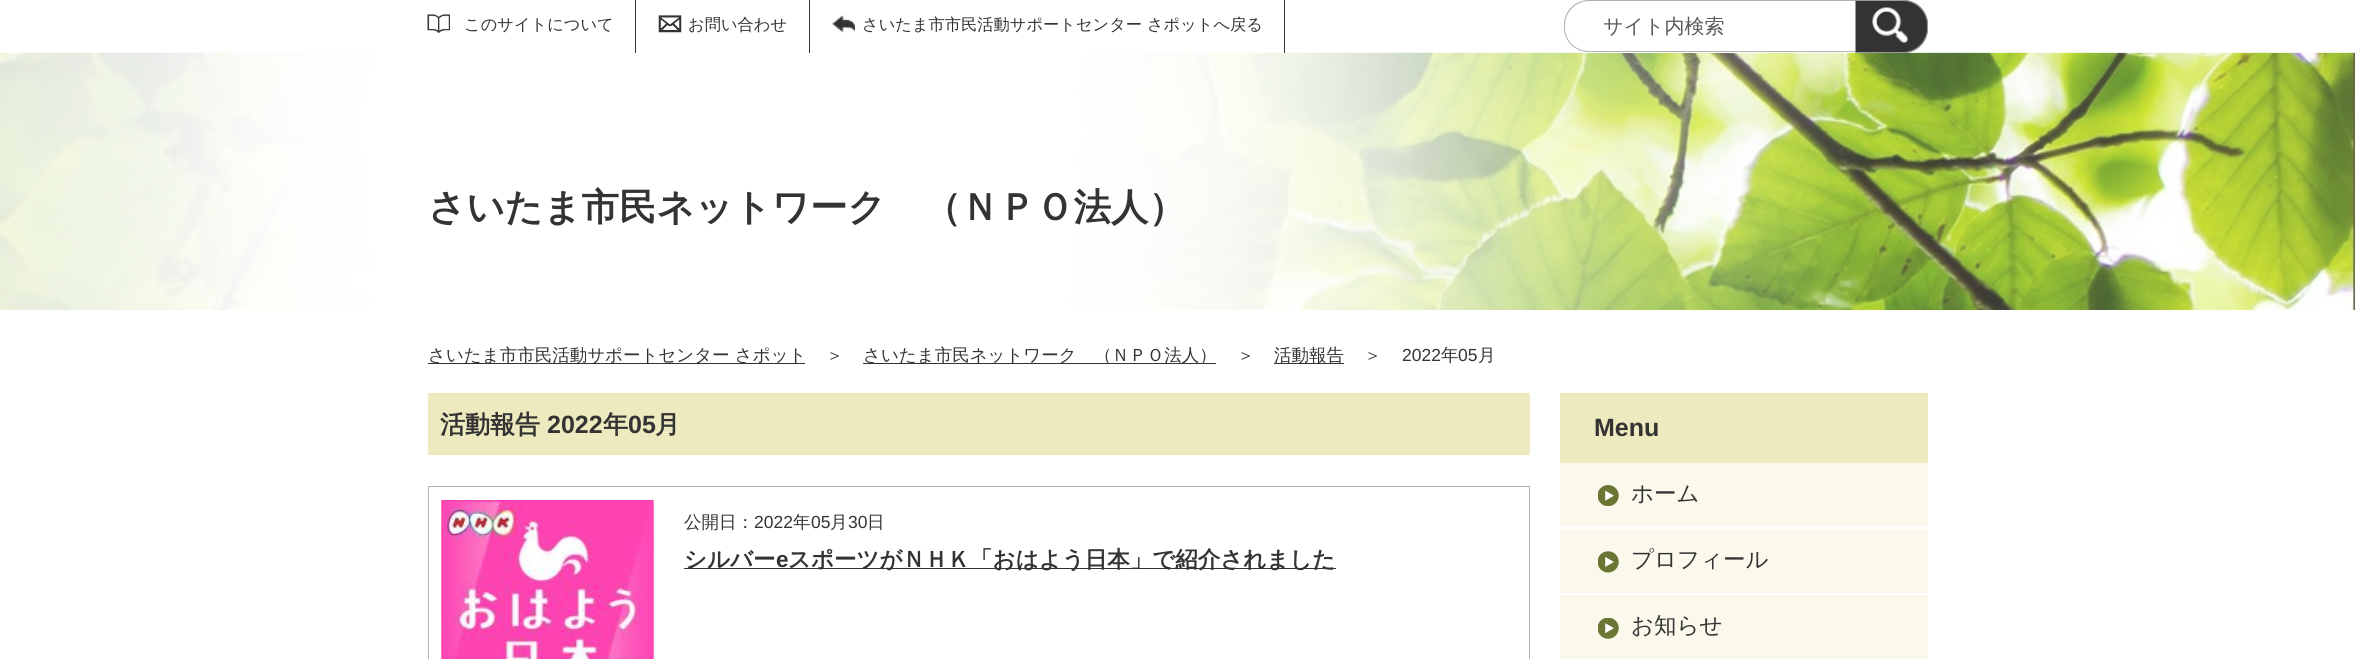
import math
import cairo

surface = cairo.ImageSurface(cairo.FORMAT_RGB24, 2355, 659)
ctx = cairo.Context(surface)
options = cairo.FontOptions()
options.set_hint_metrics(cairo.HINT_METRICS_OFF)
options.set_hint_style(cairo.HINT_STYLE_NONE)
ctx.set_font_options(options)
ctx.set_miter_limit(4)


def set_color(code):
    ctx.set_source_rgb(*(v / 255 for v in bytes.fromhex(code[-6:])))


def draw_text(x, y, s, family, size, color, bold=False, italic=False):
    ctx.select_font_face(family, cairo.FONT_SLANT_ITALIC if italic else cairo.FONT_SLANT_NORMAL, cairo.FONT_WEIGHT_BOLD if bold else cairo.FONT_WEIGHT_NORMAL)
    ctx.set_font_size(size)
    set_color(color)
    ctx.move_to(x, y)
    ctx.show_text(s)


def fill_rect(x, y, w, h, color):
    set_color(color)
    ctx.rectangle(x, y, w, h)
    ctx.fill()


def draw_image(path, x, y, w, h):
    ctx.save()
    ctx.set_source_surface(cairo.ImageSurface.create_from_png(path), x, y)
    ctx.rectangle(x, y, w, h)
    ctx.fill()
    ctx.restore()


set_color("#ffffff")
ctx.paint()
draw_image("assets/img1.png", 0, 52, 2355, 258)
ctx.set_source_rgba(1, 1, 1, 0.75)
ctx.rectangle(0, 52, 2355, 1)
ctx.fill()
fill_rect(635, 0, 1, 53, "#333333")
draw_image("assets/img2.png", 427, 14, 23, 19)
draw_text(464, 30, "このサイトについて", "WenQuanYi Zen Hei Medium", 16.25, "#333333")
fill_rect(809, 0, 1, 53, "#333333")
draw_image("assets/img3.png", 658, 15, 24, 18)
draw_text(688, 30, "お問い合わせ", "WenQuanYi Zen Hei Medium", 16.25, "#333333")
fill_rect(1284, 0, 1, 53, "#333333")
draw_image("assets/img4.png", 832, 15, 23, 18)
draw_text(862, 30, "さいたま市市民活動サポートセンター さポットへ戻る", "WenQuanYi Zen Hei Medium", 16.25, "#333333")
set_color("#ffffff")
ctx.new_path()
ctx.move_to(1589, 0)
ctx.line_to(1855, 0)
ctx.line_to(1855, 53)
ctx.line_to(1589, 53)
ctx.curve_to(1575, 53, 1564, 42, 1564, 28)
ctx.line_to(1564, 25)
ctx.curve_to(1564, 11, 1575, 0, 1589, 0)
ctx.close_path()
ctx.fill()
set_color("#b0b0b0")
ctx.set_fill_rule(cairo.FILL_RULE_EVEN_ODD)
ctx.new_path()
ctx.move_to(1589, 0)
ctx.line_to(1855, 0)
ctx.line_to(1855, 52)
ctx.line_to(1589, 52)
ctx.curve_to(1575, 52, 1564, 41, 1564, 28)
ctx.line_to(1564, 25)
ctx.curve_to(1564, 11, 1575, 0, 1589, 0)
ctx.close_path()
ctx.move_to(1589, 1)
ctx.line_to(1855, 1)
ctx.line_to(1855, 51)
ctx.line_to(1589, 51)
ctx.curve_to(1576, 51, 1565, 41, 1565, 28)
ctx.line_to(1565, 25)
ctx.curve_to(1565, 12, 1576, 1, 1589, 1)
ctx.close_path()
ctx.fill()
draw_text(1603, 33, "サイト内検索", "WenQuanYi Zen Hei Medium", 20, "#595959")
set_color("#333333")
ctx.new_path()
ctx.move_to(1855, 0)
ctx.line_to(1903, 0)
ctx.curve_to(1917, 0, 1928, 11, 1928, 25)
ctx.line_to(1928, 28)
ctx.curve_to(1928, 42, 1917, 53, 1903, 53)
ctx.line_to(1855, 53)
ctx.close_path()
ctx.fill()
ctx.new_path()
ctx.move_to(1855.5, 0.5)
ctx.line_to(1903, 0.5)
ctx.curve_to(1916.5, 0.5, 1927.5, 11.5, 1927.5, 25)
ctx.line_to(1927.5, 28)
ctx.curve_to(1927.5, 41.5, 1916.5, 52.5, 1903, 52.5)
ctx.line_to(1855.5, 52.5)
ctx.close_path()
ctx.set_source_rgba(0.655, 0.655, 0.655, 0.9)
ctx.set_line_width(1)
ctx.stroke()
draw_image("assets/img5.png", 1872, 7, 36, 36)
draw_text(428, 220, "さいたま市民ネットワーク　（ＮＰＯ法人）", "WenQuanYi Zen Hei", 37.5, "#333333", bold=True)
fill_rect(428, 363, 377, 1, "#333333")
draw_text(428, 361, "さいたま市市民活動サポートセンター さポット", "WenQuanYi Zen Hei Medium", 17.5, "#333333")
draw_text(826, 361, "＞", "WenQuanYi Zen Hei Medium", 17.5, "#333333")
fill_rect(863, 363, 353, 1, "#333333")
draw_text(863, 361, "さいたま市民ネットワーク　（ＮＰＯ法人）", "WenQuanYi Zen Hei Medium", 17.5, "#333333")
draw_text(1237, 361, "＞", "WenQuanYi Zen Hei Medium", 17.5, "#333333")
fill_rect(1274, 363, 70, 1, "#333333")
draw_text(1274, 361, "活動報告", "WenQuanYi Zen Hei Medium", 17.5, "#333333")
draw_text(1364, 361, "＞", "WenQuanYi Zen Hei Medium", 17.5, "#333333")
draw_text(1402, 361, "2022", "Liberation Sans", 17.5, "#333333")
draw_text(1441, 361, "年", "WenQuanYi Zen Hei Medium", 17.5, "#333333")
draw_text(1458, 361, "05", "Liberation Sans", 17.5, "#333333")
draw_text(1478, 361, "月", "WenQuanYi Zen Hei Medium", 17.5, "#333333")
fill_rect(428, 393, 1102, 62, "#eeeabf")
draw_text(440, 433, "活動報告", "WenQuanYi Zen Hei", 25, "#333333", bold=True)
draw_text(547, 433, "2022", "Liberation Sans", 25, "#333333", bold=True)
draw_text(603, 433, "年", "WenQuanYi Zen Hei", 25, "#333333", bold=True)
draw_text(628, 433, "05", "Liberation Sans", 25, "#333333", bold=True)
draw_text(655, 433, "月", "WenQuanYi Zen Hei", 25, "#333333", bold=True)
ctx.rectangle(428.5, 486.5, 1101, 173)
set_color("#b4b4b4")
ctx.stroke()
draw_image("assets/img6.png", 441, 500, 213, 159)
draw_text(684, 528, "公開日：", "WenQuanYi Zen Hei Medium", 17.5, "#333333")
draw_text(754, 528, "2022", "Liberation Sans", 17.5, "#333333")
draw_text(793, 528, "年", "WenQuanYi Zen Hei Medium", 17.5, "#333333")
draw_text(811, 528, "05", "Liberation Sans", 17.5, "#333333")
draw_text(830, 528, "月", "WenQuanYi Zen Hei Medium", 17.5, "#333333")
draw_text(848, 528, "30", "Liberation Sans", 17.5, "#333333")
draw_text(867, 528, "日", "WenQuanYi Zen Hei Medium", 17.5, "#333333")
fill_rect(684, 568, 652, 1, "#333333")
draw_text(684, 567, "シルバー", "WenQuanYi Zen Hei", 22.5, "#333333", bold=True)
draw_text(776, 567, "e", "Liberation Sans", 22.5, "#333333", bold=True)
draw_text(788, 567, "スポーツがＮＨＫ「おはよう日本」で紹介されました", "WenQuanYi Zen Hei", 22.5, "#333333", bold=True)
fill_rect(1560, 393, 368, 70, "#eeeabf")
draw_text(1594, 436, "Menu", "Liberation Sans", 25, "#333333", bold=True)
fill_rect(1560, 463, 368, 63, "#faf9ec")
draw_image("assets/img7.png", 1598, 485, 21, 21)
draw_text(1631, 501, "ホーム", "WenQuanYi Zen Hei Medium", 22.5, "#333333")
fill_rect(1560, 529, 368, 64, "#faf9ec")
draw_image("assets/img8.png", 1598, 551, 21, 22)
draw_text(1631, 567, "プロフィール", "WenQuanYi Zen Hei Medium", 22.5, "#333333")
fill_rect(1560, 595, 368, 64, "#faf9ec")
draw_image("assets/img9.png", 1598, 618, 21, 21)
draw_text(1631, 633, "お知らせ", "WenQuanYi Zen Hei Medium", 22.5, "#333333")
surface.write_to_png("output.png")
